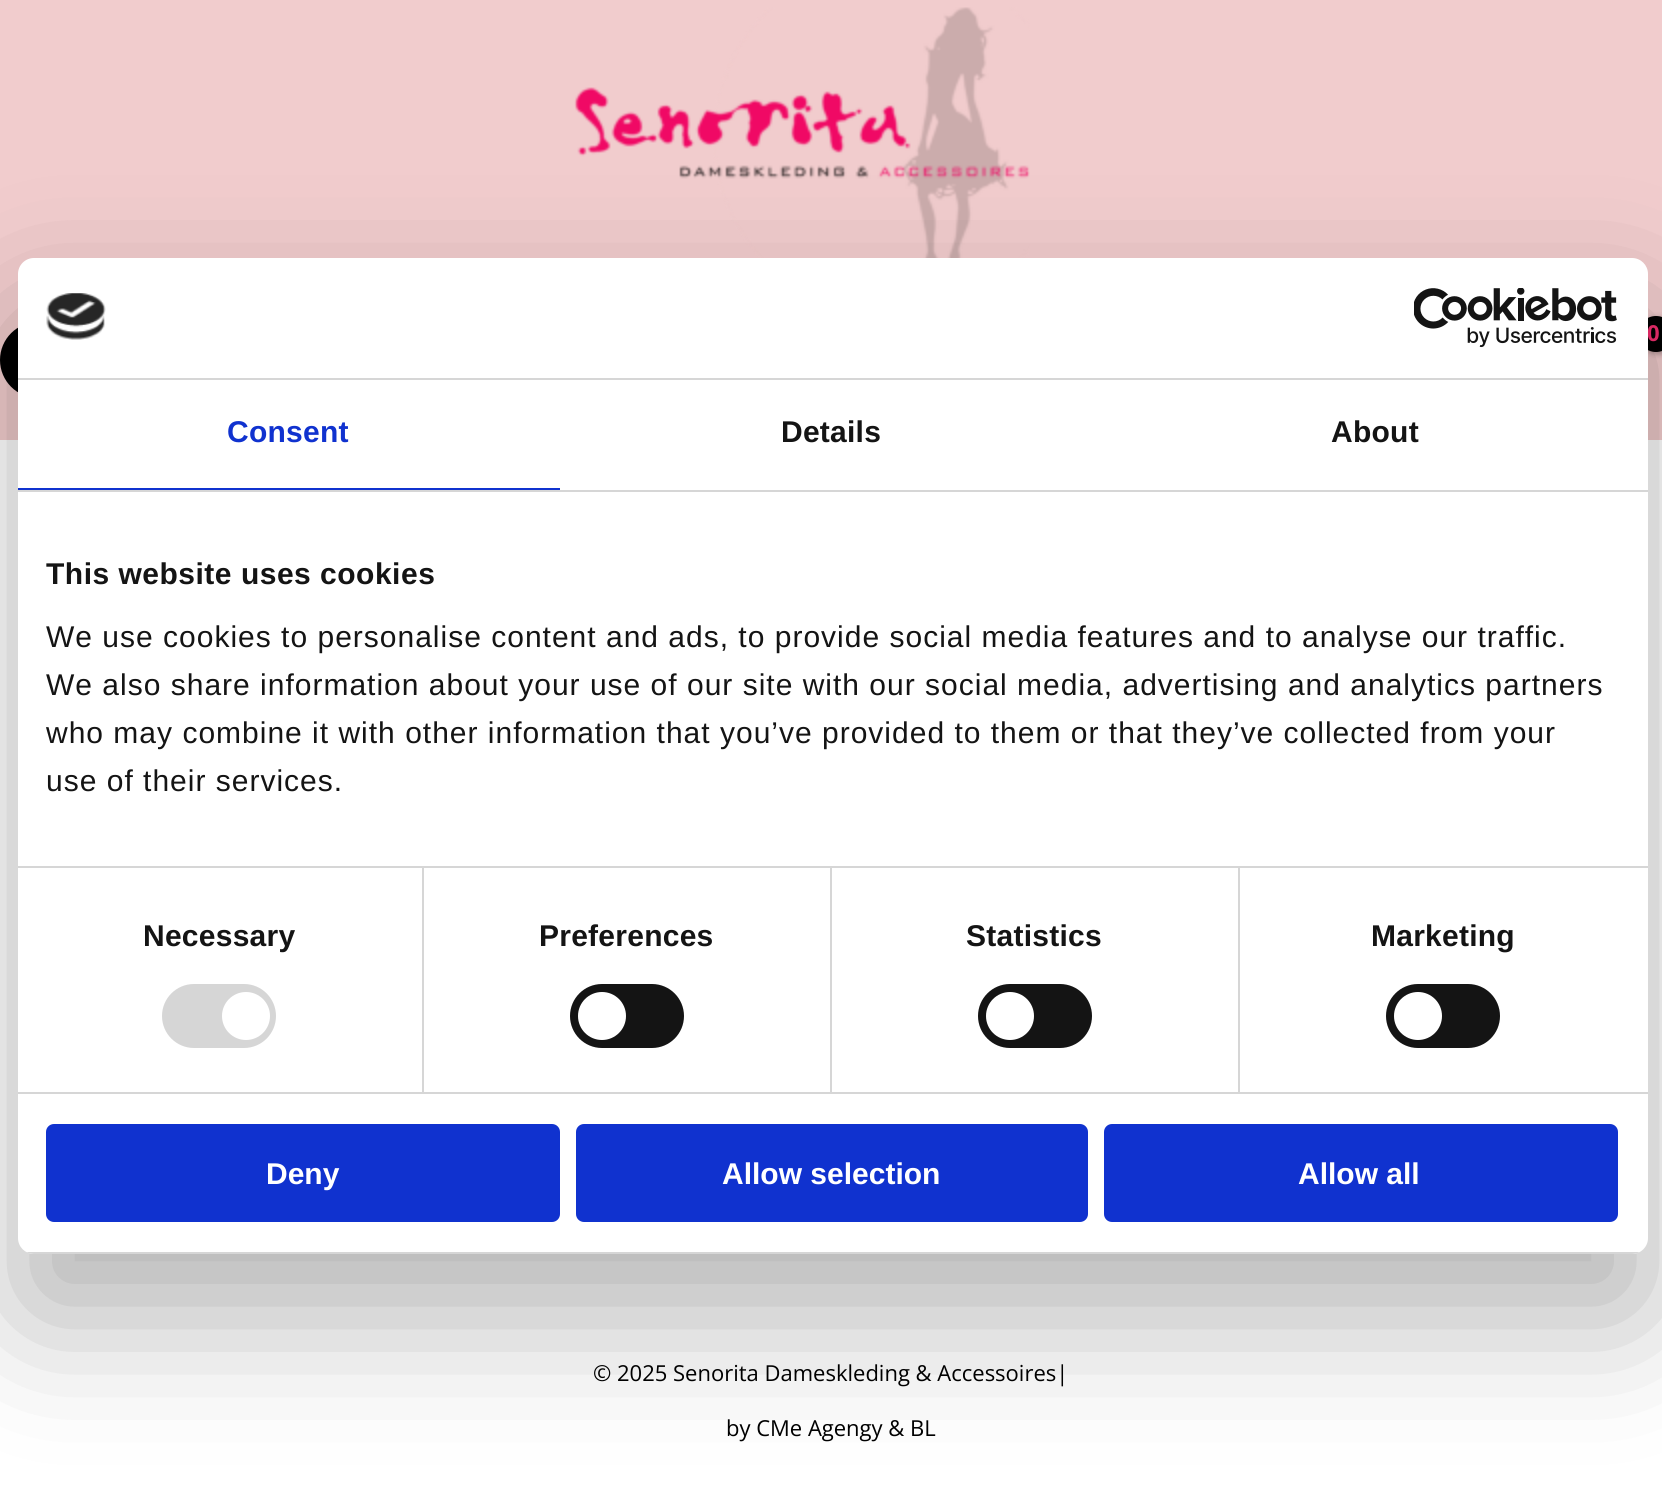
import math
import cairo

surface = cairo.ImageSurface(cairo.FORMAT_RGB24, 1662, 1509)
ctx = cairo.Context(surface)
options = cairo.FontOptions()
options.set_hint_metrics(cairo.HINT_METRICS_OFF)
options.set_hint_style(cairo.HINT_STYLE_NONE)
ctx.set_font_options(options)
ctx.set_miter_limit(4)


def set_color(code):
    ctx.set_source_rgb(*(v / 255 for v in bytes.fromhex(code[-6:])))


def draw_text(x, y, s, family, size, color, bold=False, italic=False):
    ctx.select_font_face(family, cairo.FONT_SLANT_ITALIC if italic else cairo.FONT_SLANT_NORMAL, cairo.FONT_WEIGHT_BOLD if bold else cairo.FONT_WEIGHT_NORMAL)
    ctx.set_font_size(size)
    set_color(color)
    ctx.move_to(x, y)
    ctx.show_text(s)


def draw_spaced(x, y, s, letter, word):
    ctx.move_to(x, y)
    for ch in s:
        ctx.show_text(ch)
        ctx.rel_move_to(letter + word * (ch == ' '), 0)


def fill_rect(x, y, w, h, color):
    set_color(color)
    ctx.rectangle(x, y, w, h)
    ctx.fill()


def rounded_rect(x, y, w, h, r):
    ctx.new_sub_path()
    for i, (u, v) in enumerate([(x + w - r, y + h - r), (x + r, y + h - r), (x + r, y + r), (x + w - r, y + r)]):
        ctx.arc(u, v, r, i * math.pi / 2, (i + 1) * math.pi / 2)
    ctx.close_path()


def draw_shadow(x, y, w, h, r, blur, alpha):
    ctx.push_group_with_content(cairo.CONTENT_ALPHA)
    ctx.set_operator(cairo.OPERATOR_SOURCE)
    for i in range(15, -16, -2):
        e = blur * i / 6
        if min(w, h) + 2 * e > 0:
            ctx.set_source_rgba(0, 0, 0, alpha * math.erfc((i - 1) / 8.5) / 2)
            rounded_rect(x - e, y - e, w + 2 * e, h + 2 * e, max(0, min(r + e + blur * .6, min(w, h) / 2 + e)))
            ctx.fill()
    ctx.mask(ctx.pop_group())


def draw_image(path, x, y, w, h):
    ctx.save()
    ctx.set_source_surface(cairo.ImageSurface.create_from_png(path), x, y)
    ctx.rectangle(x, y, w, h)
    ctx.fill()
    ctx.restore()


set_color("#ffffff")
ctx.paint()
fill_rect(0, 0, 1662, 440, "#f1cccd")
draw_image("assets/img1.png", 574, 7, 456, 251)
set_color("#000000")
ctx.arc(38, 360, 38, 0, 2 * math.pi)
ctx.fill()
set_color("#000000")
draw_shadow(1640, 318, 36, 36, 18, 3, 0.3)
set_color("#000000")
ctx.arc(1656, 334, 18, 0, 2 * math.pi)
ctx.fill()
ctx.select_font_face("Open Sans", cairo.FONT_SLANT_NORMAL, cairo.FONT_WEIGHT_BOLD)
ctx.set_font_size(22)
set_color("#f42e6f")
draw_spaced(1647, 341, "0", -1, 0)
draw_text(593, 1381, "© 2025 Senorita Dameskleding & Accessoires|", "Open Sans", 22, "#000000")
draw_text(726, 1436, "by CMe Agengy & BL", "Open Sans", 22, "#000000")
set_color("#000000")
draw_shadow(18, 322, 1630, 996, 16, 68, 0.3)
set_color("#ffffff")
rounded_rect(18, 258, 1630, 996, 16)
ctx.fill()
fill_rect(18, 378, 1630, 2, "#d6d6d6")
draw_image("assets/img2.png", 46, 293, 60, 47)
draw_image("assets/img3.png", 1414, 288, 203, 60)
fill_rect(18, 490, 1630, 2, "#d6d6d6")
fill_rect(18, 488, 542, 2, "#1032cf")
ctx.select_font_face("Liberation Sans", cairo.FONT_SLANT_NORMAL, cairo.FONT_WEIGHT_BOLD)
ctx.set_font_size(30)
draw_spaced(227, 442, "Consent", 0.25, 0)
set_color("#141414")
draw_spaced(781, 442, "Details", 0.25, 0)
draw_spaced(1331, 442, "About", 0.25, 0)
fill_rect(18, 866, 1630, 2, "#d6d6d6")
set_color("#141414")
draw_spaced(46, 584, "This website uses cookies", 0.5, 0)
ctx.select_font_face("Liberation Sans")
draw_spaced(46, 647, "We use cookies to personalise content and ads, to provide social media features and to analyse our traffic.", 1, 0)
draw_spaced(46, 695, "We also share information about your use of our site with our social media, advertising and analytics partners", 1, 0)
draw_spaced(46, 743, "who may combine it with other information that you’ve provided to them or that they’ve collected from your", 1, 0)
draw_spaced(46, 791, "use of their services.", 1, 0)
fill_rect(18, 1092, 1630, 2, "#d6d6d6")
fill_rect(422, 868, 2, 224, "#d6d6d6")
ctx.select_font_face("Liberation Sans", cairo.FONT_SLANT_NORMAL, cairo.FONT_WEIGHT_BOLD)
set_color("#141414")
draw_spaced(143, 946, "Necessary", 0.25, 0)
set_color("#d6d6d6")
rounded_rect(162, 984, 114, 64, 32)
ctx.fill()
set_color("#ffffff")
ctx.arc(246, 1016, 24, 0, 2 * math.pi)
ctx.fill()
fill_rect(830, 868, 2, 224, "#d6d6d6")
set_color("#141414")
draw_spaced(539, 946, "Preferences", 0.25, 0)
rounded_rect(570, 984, 114, 64, 32)
ctx.fill()
set_color("#ffffff")
ctx.arc(602, 1016, 24, 0, 2 * math.pi)
ctx.fill()
fill_rect(1238, 868, 2, 224, "#d6d6d6")
set_color("#141414")
draw_spaced(966, 946, "Statistics", 0.25, 0)
rounded_rect(978, 984, 114, 64, 32)
ctx.fill()
set_color("#ffffff")
ctx.arc(1010, 1016, 24, 0, 2 * math.pi)
ctx.fill()
set_color("#141414")
draw_spaced(1371, 946, "Marketing", 0.25, 0)
rounded_rect(1386, 984, 114, 64, 32)
ctx.fill()
set_color("#ffffff")
ctx.arc(1418, 1016, 24, 0, 2 * math.pi)
ctx.fill()
ctx.save()
rounded_rect(18, 258, 1630, 996, 16)
ctx.clip()
fill_rect(18, 1252, 1630, 2, "#d6d6d6")
ctx.restore()
set_color("#1032cf")
rounded_rect(48, 1126, 510, 94, 6)
ctx.fill_preserve()
ctx.set_line_width(4)
ctx.stroke()
draw_text(266, 1184, "Deny", "Liberation Sans", 30, "#ffffff", bold=True)
set_color("#1032cf")
rounded_rect(578, 1126, 508, 94, 6)
ctx.fill_preserve()
ctx.stroke()
draw_text(722, 1184, "Allow selection", "Liberation Sans", 30, "#ffffff", bold=True)
set_color("#1032cf")
rounded_rect(1106, 1126, 510, 94, 6)
ctx.fill_preserve()
ctx.stroke()
draw_text(1298, 1184, "Allow all", "Liberation Sans", 30, "#ffffff", bold=True)
surface.write_to_png("output.png")
